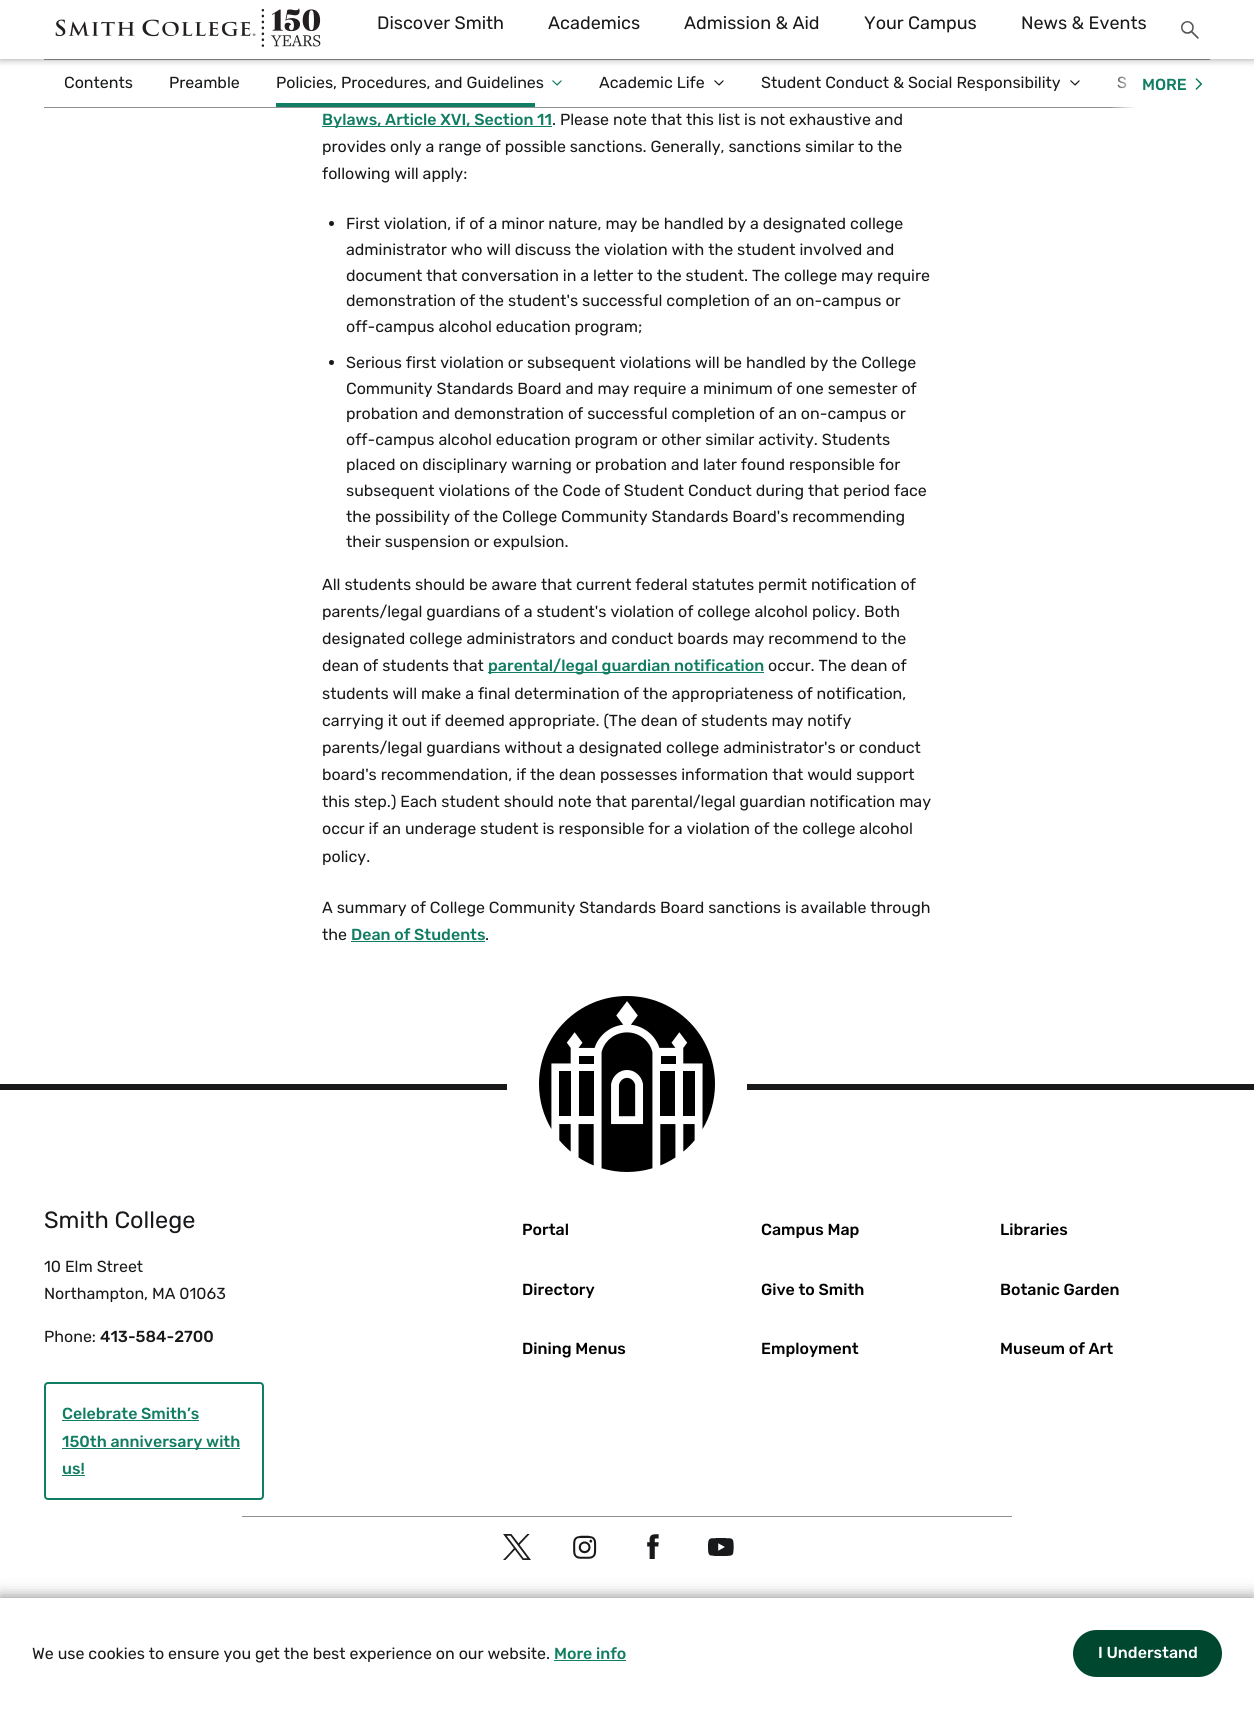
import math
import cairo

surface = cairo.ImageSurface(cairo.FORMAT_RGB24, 1254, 1709)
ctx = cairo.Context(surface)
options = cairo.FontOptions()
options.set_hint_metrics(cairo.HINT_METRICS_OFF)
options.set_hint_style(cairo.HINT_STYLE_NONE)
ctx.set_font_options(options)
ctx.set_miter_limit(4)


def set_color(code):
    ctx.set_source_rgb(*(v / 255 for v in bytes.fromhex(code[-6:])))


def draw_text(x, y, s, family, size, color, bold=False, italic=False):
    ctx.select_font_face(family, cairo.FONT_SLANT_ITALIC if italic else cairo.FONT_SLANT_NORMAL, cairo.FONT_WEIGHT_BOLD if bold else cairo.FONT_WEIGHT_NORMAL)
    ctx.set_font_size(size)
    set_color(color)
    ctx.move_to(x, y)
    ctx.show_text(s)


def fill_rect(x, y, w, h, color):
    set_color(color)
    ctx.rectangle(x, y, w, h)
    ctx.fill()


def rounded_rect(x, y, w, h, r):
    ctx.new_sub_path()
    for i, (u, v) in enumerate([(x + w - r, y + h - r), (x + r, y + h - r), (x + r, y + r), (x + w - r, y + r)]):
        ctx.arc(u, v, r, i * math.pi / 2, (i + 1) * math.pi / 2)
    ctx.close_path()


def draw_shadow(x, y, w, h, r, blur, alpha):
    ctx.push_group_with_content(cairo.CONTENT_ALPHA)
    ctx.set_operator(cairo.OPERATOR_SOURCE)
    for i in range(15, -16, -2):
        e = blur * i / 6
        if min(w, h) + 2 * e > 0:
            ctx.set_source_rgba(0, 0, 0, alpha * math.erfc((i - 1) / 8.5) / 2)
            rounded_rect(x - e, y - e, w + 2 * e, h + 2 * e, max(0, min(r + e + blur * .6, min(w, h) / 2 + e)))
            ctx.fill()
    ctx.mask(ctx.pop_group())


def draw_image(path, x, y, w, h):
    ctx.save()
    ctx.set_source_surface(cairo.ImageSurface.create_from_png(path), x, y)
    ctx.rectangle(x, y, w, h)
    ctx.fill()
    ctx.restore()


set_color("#ffffff")
ctx.paint()
fill_rect(44, 59, 1166, 1, "#919292")
set_color("#000000")
draw_shadow(0, 0, 1254, 59, 0, 4, 0.4)
fill_rect(0, 0, 1254, 59, "#ffffff")
draw_image("assets/img1.png", 55, 8, 266, 39)
draw_text(377, 29, "Discover Smith", "Rubik", 18, "#18191b")
draw_text(548, 29, "Academics", "Rubik", 18, "#18191b")
draw_text(684, 29, "Admission & Aid", "Rubik", 18, "#18191b")
draw_text(864, 29, "Your Campus", "Rubik", 18, "#18191b")
draw_text(1021, 29, "News & Events", "Rubik", 18, "#18191b")
draw_image("assets/img2.png", 1181, 21, 18, 18)
fill_rect(44, 107, 1091, 1, "#919292")
draw_text(64, 88, "Contents", "Rubik", 16, "#18191b")
draw_text(169, 88, "Preamble", "Rubik", 16, "#18191b")
draw_text(276, 88, "Policies, Procedures, and Guidelines", "Rubik", 16, "#18191b")
fill_rect(276, 103, 259, 4, "#117d62")
draw_image("assets/img3.png", 552, 80, 10, 6)
draw_text(599, 88, "Academic Life", "Rubik", 16, "#18191b")
draw_image("assets/img4.png", 714, 80, 10, 6)
draw_text(761, 88, "Student Conduct & Social Responsibility", "Rubik", 16, "#18191b")
draw_image("assets/img4.png", 1070, 80, 10, 6)
draw_text(1117, 88, "S", "Rubik", 16, "#18191b")
gradient = cairo.LinearGradient(1110, 85, 1211, 85)
gradient.add_color_stop_rgba(0, 1, 1, 1, 0)
gradient.add_color_stop_rgba(0.25, 1, 1, 1, 1)
ctx.set_source(gradient)
ctx.rectangle(1111, 76, 24, 32)
ctx.fill()
draw_text(1142, 90, "MORE", "Rubik Medium", 16, "#117d62")
draw_image("assets/img5.png", 1195, 78, 7, 12)
fill_rect(322, 126, 230, 1, "#117d62")
draw_text(322, 125, "Bylaws, Article XVI, Section 11", "Rubik Medium", 16, "#117d62")
draw_text(552, 125, ". Please note that this list is not exhaustive and", "Rubik", 16, "#18191b")
draw_text(322, 152, "provides only a range of possible sanctions. Generally, sanctions similar to the", "Rubik", 16, "#18191b")
draw_text(322, 179, "following will apply:", "Rubik", 16, "#18191b")
ctx.new_path()
ctx.arc(331.5, 223.5, 2.5, 0, 2 * math.pi)
ctx.fill()
draw_text(346, 229, "First violation, if of a minor nature, may be handled by a designated college", "Rubik", 16, "#18191b")
draw_text(346, 255, "administrator who will discuss the violation with the student involved and", "Rubik", 16, "#18191b")
draw_text(346, 281, "document that conversation in a letter to the student. The college may require", "Rubik", 16, "#18191b")
draw_text(346, 306, "demonstration of the student's successful completion of an on-campus or", "Rubik", 16, "#18191b")
draw_text(346, 332, "off-campus alcohol education program;", "Rubik", 16, "#18191b")
ctx.new_path()
ctx.arc(331.5, 362.5, 2.5, 0, 2 * math.pi)
ctx.fill()
draw_text(346, 368, "Serious first violation or subsequent violations will be handled by the College", "Rubik", 16, "#18191b")
draw_text(346, 394, "Community Standards Board and may require a minimum of one semester of", "Rubik", 16, "#18191b")
draw_text(346, 419, "probation and demonstration of successful completion of an on-campus or", "Rubik", 16, "#18191b")
draw_text(346, 445, "off-campus alcohol education program or other similar activity. Students", "Rubik", 16, "#18191b")
draw_text(346, 470, "placed on disciplinary warning or probation and later found responsible for", "Rubik", 16, "#18191b")
draw_text(346, 496, "subsequent violations of the Code of Student Conduct during that period face", "Rubik", 16, "#18191b")
draw_text(346, 522, "the possibility of the College Community Standards Board's recommending", "Rubik", 16, "#18191b")
draw_text(346, 547, "their suspension or expulsion.", "Rubik", 16, "#18191b")
draw_text(322, 590, "All students should be aware that current federal statutes permit notification of", "Rubik", 16, "#18191b")
draw_text(322, 617, "parents/legal guardians of a student's violation of college alcohol policy. Both", "Rubik", 16, "#18191b")
draw_text(322, 644, "designated college administrators and conduct boards may recommend to the", "Rubik", 16, "#18191b")
draw_text(322, 671, "dean of students that", "Rubik", 16, "#18191b")
fill_rect(488, 672, 276, 1, "#117d62")
draw_text(488, 671, "parental/legal guardian notification", "Rubik Medium", 16, "#117d62")
draw_text(768, 671, "occur. The dean of", "Rubik", 16, "#18191b")
draw_text(322, 699, "students will make a final determination of the appropriateness of notification,", "Rubik", 16, "#18191b")
draw_text(322, 726, "carrying it out if deemed appropriate. (The dean of students may notify", "Rubik", 16, "#18191b")
draw_text(322, 753, "parents/legal guardians without a designated college administrator's or conduct", "Rubik", 16, "#18191b")
draw_text(322, 780, "board's recommendation, if the dean possesses information that would support", "Rubik", 16, "#18191b")
draw_text(322, 807, "this step.) Each student should note that parental/legal guardian notification may", "Rubik", 16, "#18191b")
draw_text(322, 834, "occur if an underage student is responsible for a violation of the college alcohol", "Rubik", 16, "#18191b")
draw_text(322, 862, "policy.", "Rubik", 16, "#18191b")
draw_text(322, 913, "A summary of College Community Standards Board sanctions is available through", "Rubik", 16, "#18191b")
draw_text(322, 940, "the", "Rubik", 16, "#18191b")
draw_text(351, 940, "Dean of Students", "Rubik Medium", 16, "#117d62")
fill_rect(351, 941, 134, 1, "#117d62")
draw_text(485, 940, ".", "Rubik", 16, "#18191b")
fill_rect(0, 1084, 1254, 6, "#18191b")
fill_rect(507, 1084, 240, 6, "#ffffff")
draw_image("assets/img6.png", 539, 996, 176, 176)
draw_text(44, 1228, "Smith College", "Rubik", 23.5, "#18191b")
draw_text(44, 1272, "10 Elm Street", "Rubik", 16, "#18191b")
draw_text(44, 1299, "Northampton, MA 01063", "Rubik", 16, "#18191b")
draw_text(44, 1342, "Phone:", "Rubik", 16, "#18191b")
draw_text(100, 1342, "413-584-2700", "Rubik Medium", 16, "#18191b")
draw_text(522, 1235, "Portal", "Rubik Medium", 16, "#000000")
draw_text(761, 1235, "Campus Map", "Rubik Medium", 16, "#000000")
draw_text(1000, 1235, "Libraries", "Rubik Medium", 16, "#000000")
draw_text(522, 1295, "Directory", "Rubik Medium", 16, "#000000")
draw_text(761, 1295, "Give to Smith", "Rubik Medium", 16, "#000000")
draw_text(1000, 1295, "Botanic Garden", "Rubik Medium", 16, "#000000")
draw_text(522, 1354, "Dining Menus", "Rubik Medium", 16, "#000000")
draw_text(761, 1354, "Employment", "Rubik Medium", 16, "#000000")
draw_text(1000, 1354, "Museum of Art", "Rubik Medium", 16, "#000000")
rounded_rect(45, 1383, 218, 116, 3)
set_color("#117d62")
ctx.stroke()
draw_text(62, 1419, "Celebrate Smith’s", "Rubik Medium", 16, "#117d62")
fill_rect(62, 1420, 137, 1, "#117d62")
fill_rect(62, 1448, 178, 1, "#117d62")
draw_text(62, 1447, "150th anniversary with", "Rubik Medium", 16, "#117d62")
draw_text(62, 1474, "us!", "Rubik Medium", 16, "#117d62")
fill_rect(62, 1475, 23, 1, "#117d62")
fill_rect(242, 1516, 770, 1, "#919292")
draw_image("assets/img7.png", 503, 1534, 28, 26)
draw_image("assets/img8.png", 573, 1535, 24, 24)
draw_image("assets/img9.png", 647, 1534, 12, 25)
draw_image("assets/img10.png", 708, 1538, 26, 18)
set_color("#000000")
draw_shadow(0, 1598, 1254, 111, 0, 8, 0.5)
fill_rect(0, 1598, 1254, 111, "#ffffff")
draw_text(32, 1659, "We use cookies to ensure you get the best experience on our website.", "Rubik", 16, "#18191b")
draw_text(554, 1659, "More info", "Rubik Medium", 16, "#117d62")
fill_rect(554, 1660, 72, 1, "#117d62")
set_color("#00472f")
rounded_rect(1074, 1631, 147, 45, 22.5)
ctx.fill_preserve()
ctx.stroke()
draw_text(1098, 1658, "I Understand", "Rubik Medium", 16, "#ffffff")
surface.write_to_png("output.png")
